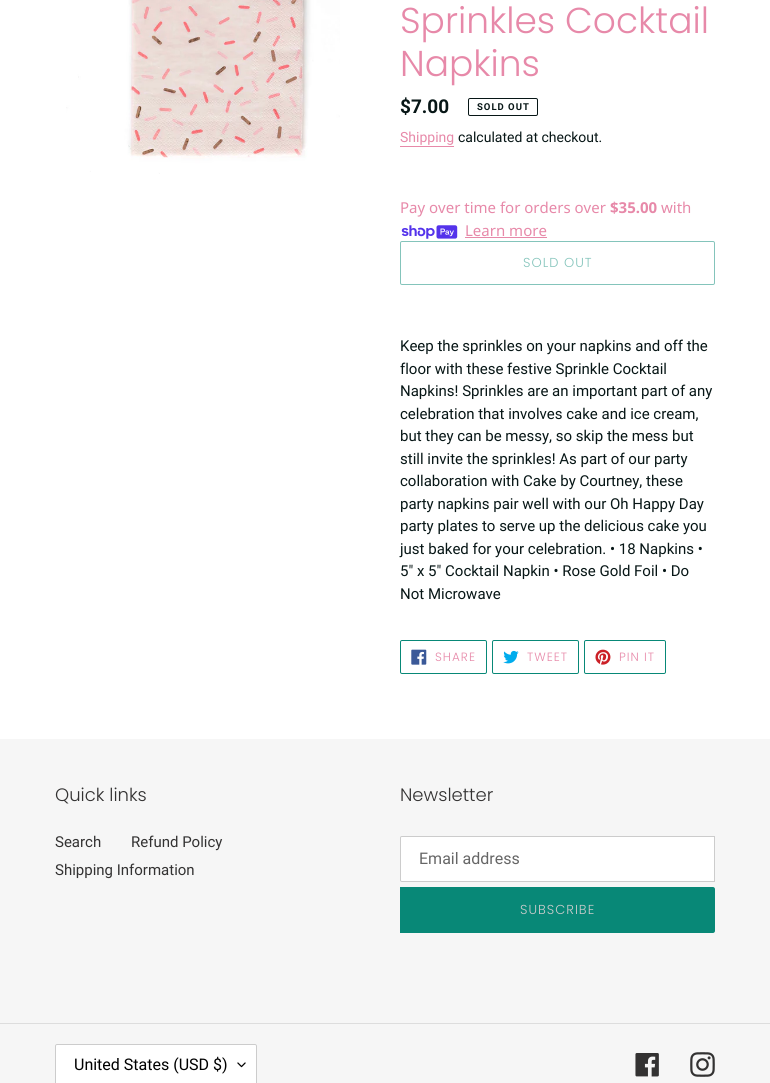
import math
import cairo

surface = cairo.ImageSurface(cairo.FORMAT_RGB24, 770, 1083)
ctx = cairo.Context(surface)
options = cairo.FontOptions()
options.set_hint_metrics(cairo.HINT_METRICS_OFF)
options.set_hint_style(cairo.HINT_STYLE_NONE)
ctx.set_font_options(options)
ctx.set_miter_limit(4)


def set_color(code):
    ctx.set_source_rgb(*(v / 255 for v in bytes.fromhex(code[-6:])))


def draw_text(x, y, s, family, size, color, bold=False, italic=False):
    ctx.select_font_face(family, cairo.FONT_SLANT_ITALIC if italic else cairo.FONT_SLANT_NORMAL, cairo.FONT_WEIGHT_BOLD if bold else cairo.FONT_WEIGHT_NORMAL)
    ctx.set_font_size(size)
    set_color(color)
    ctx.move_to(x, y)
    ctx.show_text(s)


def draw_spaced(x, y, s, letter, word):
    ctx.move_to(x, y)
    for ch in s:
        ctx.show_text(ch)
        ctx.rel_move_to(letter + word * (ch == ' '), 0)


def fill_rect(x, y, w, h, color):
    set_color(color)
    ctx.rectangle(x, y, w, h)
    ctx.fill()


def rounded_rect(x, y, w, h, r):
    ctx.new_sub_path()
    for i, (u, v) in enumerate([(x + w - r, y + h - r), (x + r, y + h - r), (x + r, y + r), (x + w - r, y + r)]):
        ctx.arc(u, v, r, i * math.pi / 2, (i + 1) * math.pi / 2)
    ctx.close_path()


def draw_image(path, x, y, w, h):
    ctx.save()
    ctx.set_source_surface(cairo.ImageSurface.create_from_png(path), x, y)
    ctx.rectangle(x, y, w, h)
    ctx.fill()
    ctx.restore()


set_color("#ffffff")
ctx.paint()
draw_image("assets/img1.png", 66, 0, 274, 174)
draw_text(400, 33, "Sprinkles Cocktail", "Poppins Light", 36, "#e789a9")
draw_text(400, 76, "Napkins", "Poppins Light", 36, "#e789a9")
draw_text(400, 113, "$7.00", "Roboto", 19, "#071616", bold=True)
rounded_rect(468.5, 98.5, 69, 17, 1.5)
ctx.set_line_width(1)
ctx.stroke()
ctx.set_font_size(9.5)
draw_spaced(477, 110, "SOLD OUT", 1, 0)
draw_text(400, 142, "Shipping", "Roboto", 14, "#e789a9")
fill_rect(400, 146, 54, 1, "#e789a9")
draw_text(458, 142, "calculated at checkout.", "Roboto", 14, "#071616")
draw_text(400, 213, "Pay over time for orders over", "Noto Sans", 15, "#e789a9")
draw_text(610, 213, "$35.00", "Noto Sans", 15, "#e789a9", bold=True)
draw_text(661, 213, "with", "Noto Sans", 15, "#e789a9")
draw_image("assets/img2.png", 401, 225, 57, 14)
draw_text(465, 236, "Learn more", "Noto Sans", 15, "#e789a9")
fill_rect(465, 237, 82, 1, "#e789a9")
rounded_rect(400.5, 241.5, 314, 43, 1.5)
set_color("#84c4bb")
ctx.stroke()
ctx.select_font_face("Poppins Light")
ctx.set_font_size(13)
draw_spaced(523, 267, "SOLD OUT", 1, 0)
draw_text(400, 351, "Keep the sprinkles on your napkins and off the", "Roboto", 15, "#071616")
draw_text(400, 374, "floor with these festive Sprinkle Cocktail", "Roboto", 15, "#071616")
draw_text(400, 396, "Napkins! Sprinkles are an important part of any", "Roboto", 15, "#071616")
draw_text(400, 419, "celebration that involves cake and ice cream,", "Roboto", 15, "#071616")
draw_text(400, 441, "but they can be messy, so skip the mess but", "Roboto", 15, "#071616")
draw_text(400, 464, "still invite the sprinkles! As part of our party", "Roboto", 15, "#071616")
draw_text(400, 486, "collaboration with Cake by Courtney, these", "Roboto", 15, "#071616")
draw_text(400, 509, "party napkins pair well with our Oh Happy Day", "Roboto", 15, "#071616")
draw_text(400, 531, "party plates to serve up the delicious cake you", "Roboto", 15, "#071616")
draw_text(400, 554, "just baked for your celebration. • 18 Napkins •", "Roboto", 15, "#071616")
draw_text(400, 576, "5\" x 5\" Cocktail Napkin • Rose Gold Foil • Do", "Roboto", 15, "#071616")
draw_text(400, 599, "Not Microwave", "Roboto", 15, "#071616")
rounded_rect(400.5, 640.5, 86, 33, 1.5)
set_color("#088877")
ctx.stroke()
draw_image("assets/img3.png", 411, 649, 16, 16)
ctx.select_font_face("Poppins Light")
ctx.set_font_size(12)
set_color("#e789a9")
draw_spaced(435, 661, "SHARE", 1, 0)
rounded_rect(492.5, 640.5, 86, 33, 1.5)
set_color("#088877")
ctx.stroke()
draw_image("assets/img4.png", 503, 650, 16, 14)
set_color("#e789a9")
draw_spaced(527, 661, "TWEET", 1, 0)
rounded_rect(584.5, 640.5, 81, 33, 1.5)
set_color("#088877")
ctx.stroke()
draw_image("assets/img5.png", 595, 649, 16, 16)
set_color("#e789a9")
draw_spaced(619, 661, "PIN IT", 1, 0)
fill_rect(0, 739, 770, 344, "#f6f6f6")
draw_text(55, 801, "Quick links", "Poppins Light", 18, "#333232")
draw_text(55, 847, "Search", "Roboto", 15, "#333232")
draw_text(131, 847, "Refund Policy", "Roboto", 15, "#333232")
draw_text(55, 875, "Shipping Information", "Roboto", 15, "#333232")
draw_text(400, 801, "Newsletter", "Poppins Light", 18, "#333232")
set_color("#ffffff")
ctx.new_path()
ctx.move_to(402, 836.5)
ctx.line_to(714.5, 836.5)
ctx.line_to(714.5, 881.5)
ctx.line_to(402, 881.5)
ctx.curve_to(401, 881.5, 400.5, 881, 400.5, 880)
ctx.line_to(400.5, 838)
ctx.curve_to(400.5, 837, 401, 836.5, 402, 836.5)
ctx.close_path()
ctx.fill_preserve()
set_color("#cccccc")
ctx.stroke()
draw_text(419, 864, "Email address", "Roboto", 16, "#666666")
set_color("#088877")
ctx.new_path()
ctx.move_to(400, 887)
ctx.line_to(713, 887)
ctx.curve_to(714, 887, 715, 888, 715, 889)
ctx.line_to(715, 931)
ctx.curve_to(715, 932, 714, 933, 713, 933)
ctx.line_to(400, 933)
ctx.close_path()
ctx.fill()
ctx.select_font_face("Poppins Light")
ctx.set_font_size(13)
set_color("#cccccc")
draw_spaced(520, 914, "SUBSCRIBE", 1, 0)
fill_rect(0, 1023, 770, 1, "#dddddd")
set_color("#ffffff")
rounded_rect(55, 1044, 202, 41, 2)
ctx.fill()
draw_image("assets/img6.png", 237, 1062, 9, 6)
rounded_rect(55.5, 1044.5, 201, 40, 1.5)
set_color("#cccccc")
ctx.stroke()
draw_text(74, 1070, "United States (USD $)", "Roboto", 16, "#000000")
draw_image("assets/img7.png", 635, 1053, 24, 24)
draw_image("assets/img8.png", 690, 1052, 25, 25)
surface.write_to_png("output.png")
